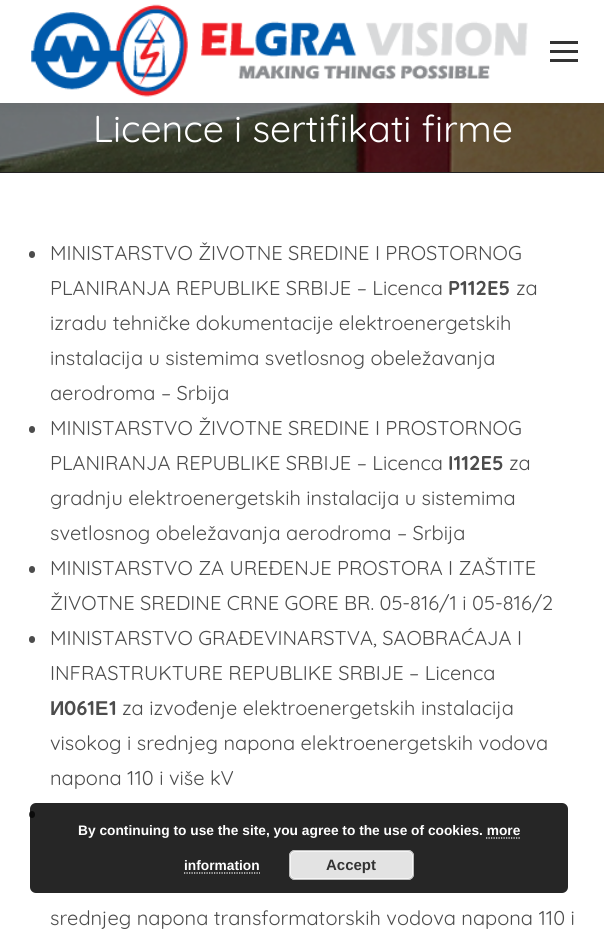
import math
import cairo

surface = cairo.ImageSurface(cairo.FORMAT_RGB24, 604, 930)
ctx = cairo.Context(surface)
options = cairo.FontOptions()
options.set_hint_metrics(cairo.HINT_METRICS_OFF)
options.set_hint_style(cairo.HINT_STYLE_NONE)
ctx.set_font_options(options)
ctx.set_miter_limit(4)


def set_color(code):
    ctx.set_source_rgb(*(v / 255 for v in bytes.fromhex(code[-6:])))


def draw_text(x, y, s, family, size, color, bold=False, italic=False):
    ctx.select_font_face(family, cairo.FONT_SLANT_ITALIC if italic else cairo.FONT_SLANT_NORMAL, cairo.FONT_WEIGHT_BOLD if bold else cairo.FONT_WEIGHT_NORMAL)
    ctx.set_font_size(size)
    set_color(color)
    ctx.move_to(x, y)
    ctx.show_text(s)


def fill_rect(x, y, w, h, color):
    set_color(color)
    ctx.rectangle(x, y, w, h)
    ctx.fill()


def rounded_rect(x, y, w, h, r):
    ctx.new_sub_path()
    for i, (u, v) in enumerate([(x + w - r, y + h - r), (x + r, y + h - r), (x + r, y + r), (x + w - r, y + r)]):
        ctx.arc(u, v, r, i * math.pi / 2, (i + 1) * math.pi / 2)
    ctx.close_path()


def draw_shadow(x, y, w, h, r, blur, alpha):
    ctx.push_group_with_content(cairo.CONTENT_ALPHA)
    ctx.set_operator(cairo.OPERATOR_SOURCE)
    for i in range(15, -16, -2):
        e = blur * i / 6
        if min(w, h) + 2 * e > 0:
            ctx.set_source_rgba(0, 0, 0, alpha * math.erfc((i - 1) / 8.5) / 2)
            rounded_rect(x - e, y - e, w + 2 * e, h + 2 * e, max(0, min(r + e + blur * .6, min(w, h) / 2 + e)))
            ctx.fill()
    ctx.mask(ctx.pop_group())


def draw_image(path, x, y, w, h):
    ctx.save()
    ctx.set_source_surface(cairo.ImageSurface.create_from_png(path), x, y)
    ctx.rectangle(x, y, w, h)
    ctx.fill()
    ctx.restore()


set_color("#ffffff")
ctx.paint()
draw_image("assets/img2.png", 0, 103, 604, 69)
set_color("#000000")
draw_shadow(-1, -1, 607, 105, 0, 9.5, 0.07)
fill_rect(0, 0, 604, 103, "#ffffff")
draw_image("assets/img1.png", 31, 4, 497, 93)
fill_rect(550, 41, 28, 3, "#333333")
fill_rect(550, 50, 28, 3, "#333333")
fill_rect(550, 59, 28, 3, "#333333")
fill_rect(0, 172, 604, 1, "#222222")
draw_text(93, 142, "Licence i sertifikati firme", "Quicksand", 37.5, "#ffffff")
set_color("#4c4c4c")
rounded_rect(29, 251, 6, 7, 3)
ctx.fill()
draw_text(50, 260, "MINISTARSTVO ŽIVOTNE SREDINE I PROSTORNOG", "Quicksand", 20, "#4c4c4c")
draw_text(50, 295, "PLANIRANJA REPUBLIKE SRBIJE – Licenca", "Quicksand", 20, "#4c4c4c")
draw_text(448, 295, "P112E5", "Quicksand", 20, "#4c4c4c", bold=True)
draw_text(516, 295, "za", "Quicksand", 20, "#4c4c4c")
draw_text(50, 330, "izradu tehničke dokumentacije elektroenergetskih", "Quicksand", 20, "#4c4c4c")
draw_text(50, 365, "instalacija u sistemima svetlosnog obeležavanja", "Quicksand", 20, "#4c4c4c")
draw_text(50, 400, "aerodroma – Srbija", "Quicksand", 20, "#4c4c4c")
rounded_rect(29, 426, 6, 7, 3)
ctx.fill()
draw_text(50, 435, "MINISTARSTVO ŽIVOTNE SREDINE I PROSTORNOG", "Quicksand", 20, "#4c4c4c")
draw_text(50, 470, "PLANIRANJA REPUBLIKE SRBIJE – Licenca", "Quicksand", 20, "#4c4c4c")
draw_text(448, 470, "I112E5", "Quicksand", 20, "#4c4c4c", bold=True)
draw_text(509, 470, "za", "Quicksand", 20, "#4c4c4c")
draw_text(50, 505, "gradnju elektroenergetskih instalacija u sistemima", "Quicksand", 20, "#4c4c4c")
draw_text(50, 540, "svetlosnog obeležavanja aerodroma – Srbija", "Quicksand", 20, "#4c4c4c")
rounded_rect(29, 566, 6, 7, 3)
ctx.fill()
draw_text(50, 575, "MINISTARSTVO ZA UREĐENJE PROSTORA I ZAŠTITE", "Quicksand", 20, "#4c4c4c")
draw_text(50, 610, "ŽIVOTNE SREDINE CRNE GORE BR. 05-816/1 i 05-816/2", "Quicksand", 20, "#4c4c4c")
rounded_rect(29, 636, 6, 7, 3)
ctx.fill()
draw_text(50, 645, "MINISTARSTVO GRAĐEVINARSTVA, SAOBRAĆAJA I", "Quicksand", 20, "#4c4c4c")
draw_text(50, 680, "INFRASTRUKTURE REPUBLIKE SRBIJE – Licenca", "Quicksand", 20, "#4c4c4c")
draw_text(50, 715, "И", "Liberation Sans", 20, "#4c4c4c", bold=True)
draw_text(64, 715, "061", "Quicksand", 20, "#4c4c4c", bold=True)
draw_text(95, 715, "Е", "Liberation Sans", 20, "#4c4c4c", bold=True)
draw_text(109, 715, "1", "Quicksand", 20, "#4c4c4c", bold=True)
draw_text(122, 715, "za izvođenje elektroenergetskih instalacija", "Quicksand", 20, "#4c4c4c")
draw_text(50, 750, "visokog i srednjeg napona elektroenergetskih vodova", "Quicksand", 20, "#4c4c4c")
draw_text(50, 785, "napona 110 i više kV", "Quicksand", 20, "#4c4c4c")
rounded_rect(29, 811, 6, 7, 3)
ctx.fill()
draw_text(50, 925, "srednjeg napona transformatorskih vodova napona 110 i", "Quicksand", 20, "#4c4c4c")
ctx.set_source_rgba(0, 0, 0, 0.85)
rounded_rect(30, 803, 538, 90, 6)
ctx.fill()
draw_text(78, 835, "By continuing to use the site, you agree to the use of cookies. more", "Liberation Sans", 13.75, "#ffffff", bold=True)
draw_text(184, 870, "information", "Liberation Sans", 13.75, "#ffffff", bold=True)
ctx.new_path()
ctx.move_to(486, 838)
ctx.line_to(520, 838)
ctx.set_line_width(1.2)
ctx.set_dash([1.25, 1.25])
ctx.stroke()
ctx.new_path()
ctx.move_to(184, 873)
ctx.line_to(260, 873)
ctx.stroke()
set_color("#e3e3e3")
rounded_rect(289, 850, 125, 30, 6)
ctx.fill()
rounded_rect(290.5, 851.5, 122, 27, 4.5)
set_color("#f6f6f6")
ctx.set_line_width(1)
ctx.set_dash([])
ctx.stroke()
rounded_rect(289.5, 850.5, 124, 29, 5.5)
set_color("#bbbbbb")
ctx.stroke()
draw_text(326, 870, "Accept", "Liberation Sans", 15, "#333333", bold=True)
surface.write_to_png("output.png")
